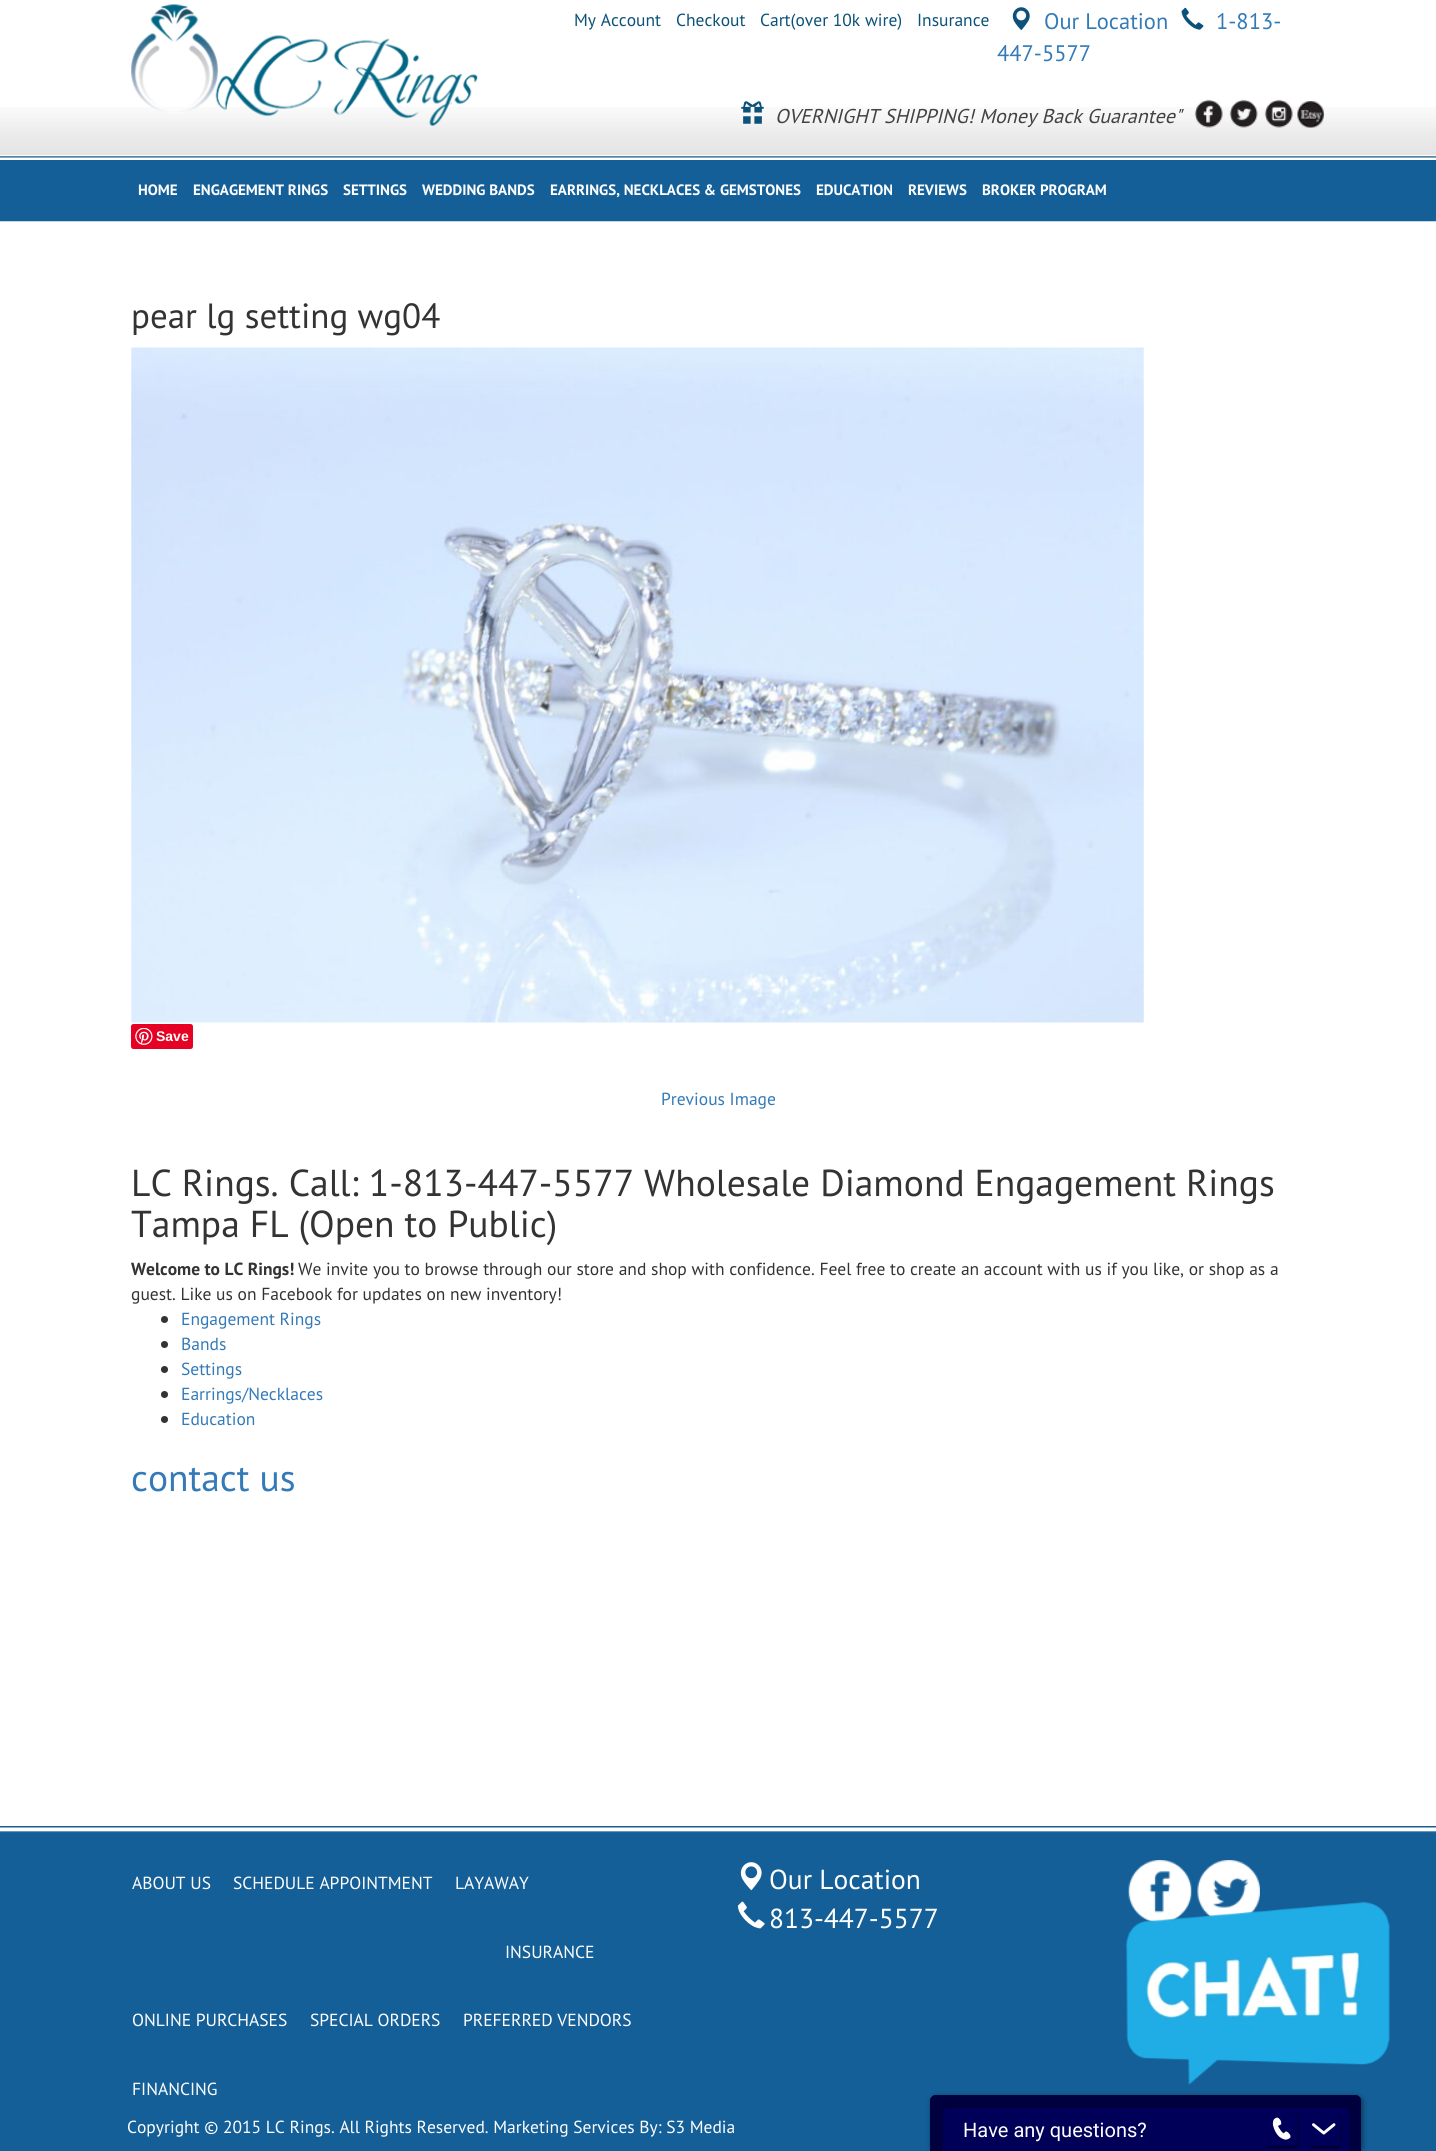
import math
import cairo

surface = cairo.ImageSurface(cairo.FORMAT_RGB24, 1436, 2151)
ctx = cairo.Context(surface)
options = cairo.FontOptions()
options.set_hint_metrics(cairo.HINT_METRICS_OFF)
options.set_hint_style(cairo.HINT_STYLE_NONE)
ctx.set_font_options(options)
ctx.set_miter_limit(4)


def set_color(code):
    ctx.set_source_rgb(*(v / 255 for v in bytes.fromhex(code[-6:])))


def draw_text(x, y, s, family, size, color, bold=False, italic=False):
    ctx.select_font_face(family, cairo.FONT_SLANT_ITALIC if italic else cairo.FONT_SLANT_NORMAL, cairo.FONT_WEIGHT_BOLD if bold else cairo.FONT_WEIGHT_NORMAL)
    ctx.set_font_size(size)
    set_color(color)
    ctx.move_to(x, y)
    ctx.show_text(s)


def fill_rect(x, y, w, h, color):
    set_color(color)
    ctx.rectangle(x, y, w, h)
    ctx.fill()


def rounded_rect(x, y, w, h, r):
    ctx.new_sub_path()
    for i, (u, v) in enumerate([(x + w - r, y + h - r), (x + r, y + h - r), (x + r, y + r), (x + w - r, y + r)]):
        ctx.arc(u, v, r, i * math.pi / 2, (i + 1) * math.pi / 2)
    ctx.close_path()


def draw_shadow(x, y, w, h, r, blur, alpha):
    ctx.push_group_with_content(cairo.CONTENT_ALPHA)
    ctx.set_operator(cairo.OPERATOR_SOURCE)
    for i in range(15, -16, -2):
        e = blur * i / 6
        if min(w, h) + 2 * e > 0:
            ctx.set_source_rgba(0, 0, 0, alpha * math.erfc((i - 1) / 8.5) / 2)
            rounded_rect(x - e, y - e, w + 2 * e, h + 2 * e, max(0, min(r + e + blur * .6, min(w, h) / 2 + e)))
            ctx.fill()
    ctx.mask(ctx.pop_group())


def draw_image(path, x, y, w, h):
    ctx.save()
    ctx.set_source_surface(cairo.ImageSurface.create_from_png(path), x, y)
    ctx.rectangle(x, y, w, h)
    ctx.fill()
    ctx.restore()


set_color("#ffffff")
ctx.paint()
draw_image("assets/img1.png", 0, 107, 1436, 51)
draw_image("assets/img2.png", 131, 4, 347, 122)
draw_text(574, 26, "My Account", "PT Sans", 17.5, "#0b5179")
draw_text(676, 26, "Checkout", "PT Sans", 17.5, "#0b5179")
draw_text(760, 26, "Cart(over 10k wire)", "PT Sans", 17.5, "#0b5179")
draw_text(917, 26, "Insurance", "PT Sans", 17.5, "#0b5179")
draw_image("assets/img3.png", 1012, 7, 18, 24)
draw_text(1044, 29, "Our Location", "PT Sans", 22.5, "#337ab7")
draw_image("assets/img4.png", 1181, 7, 23, 23)
draw_text(1216, 29, "1-813-", "PT Sans", 22.5, "#337ab7")
draw_text(997, 61, "447-5577", "PT Sans", 22.5, "#337ab7")
draw_image("assets/img5.png", 741, 101, 23, 23)
draw_text(775, 123, "OVERNIGHT SHIPPING! Money Back Guarantee\"", "PT Sans", 20, "#424242", italic=True)
draw_image("assets/img6.png", 1194, 99, 29, 29)
draw_image("assets/img7.png", 1229, 99, 29, 29)
draw_image("assets/img8.png", 1264, 99, 29, 29)
draw_image("assets/img9.png", 1297, 101, 27, 27)
fill_rect(0, 160, 1436, 61, "#145f98")
fill_rect(0, 221, 1436, 1, "#c4d7e5")
draw_text(138, 195, "HOME", "PT Sans", 15, "#ffffff", bold=True)
draw_text(193, 195, "ENGAGEMENT RINGS", "PT Sans", 15, "#ffffff", bold=True)
draw_text(343, 195, "SETTINGS", "PT Sans", 15, "#ffffff", bold=True)
draw_text(422, 195, "WEDDING BANDS", "PT Sans", 15, "#ffffff", bold=True)
draw_text(550, 195, "EARRINGS, NECKLACES & GEMSTONES", "PT Sans", 15, "#ffffff", bold=True)
draw_text(816, 195, "EDUCATION", "PT Sans", 15, "#ffffff", bold=True)
draw_text(908, 195, "REVIEWS", "PT Sans", 15, "#ffffff", bold=True)
draw_text(982, 195, "BROKER PROGRAM", "PT Sans", 15, "#ffffff", bold=True)
draw_text(131, 328, "pear lg setting wg04", "PT Sans", 35, "#333333")
draw_image("assets/img10.png", 131, 347, 1013, 676)
set_color("#e60023")
rounded_rect(131, 1024, 62, 25, 2.5)
ctx.fill()
draw_image("assets/img11.png", 135, 1028, 18, 17)
draw_text(156, 1041, "Save", "Liberation Sans", 14, "#ffffff", bold=True)
draw_text(661, 1105, "Previous Image", "PT Sans", 17.5, "#337ab7")
draw_text(131, 1196, "LC Rings. Call: 1-813-447-5577 Wholesale Diamond Engagement Rings", "PT Sans", 37.5, "#333333")
draw_text(131, 1237, "Tampa FL (Open to Public)", "PT Sans", 37.5, "#333333")
draw_text(131, 1275, "Welcome to LC Rings!", "PT Sans", 17.5, "#333333", bold=True)
draw_text(298, 1275, "We invite you to browse through our store and shop with confidence. Feel free to create an account with us if you like, or shop as a", "PT Sans", 17.5, "#333333")
draw_text(131, 1300, "guest. Like us on Facebook for updates on new inventory!", "PT Sans", 17.5, "#333333")
ctx.new_path()
ctx.arc(164.5, 1319.5, 3.5, 0, 2 * math.pi)
ctx.fill()
draw_text(181, 1325, "Engagement Rings", "PT Sans", 17.5, "#337ab7")
set_color("#333333")
ctx.new_path()
ctx.arc(164.5, 1344.5, 3.5, 0, 2 * math.pi)
ctx.fill()
draw_text(181, 1350, "Bands", "PT Sans", 17.5, "#337ab7")
set_color("#333333")
ctx.new_path()
ctx.arc(164.5, 1369.5, 3.5, 0, 2 * math.pi)
ctx.fill()
draw_text(181, 1375, "Settings", "PT Sans", 17.5, "#337ab7")
set_color("#333333")
ctx.new_path()
ctx.arc(164.5, 1394.5, 3.5, 0, 2 * math.pi)
ctx.fill()
draw_text(181, 1400, "Earrings/Necklaces", "PT Sans", 17.5, "#337ab7")
set_color("#333333")
ctx.new_path()
ctx.arc(164.5, 1419.5, 3.5, 0, 2 * math.pi)
ctx.fill()
draw_text(181, 1425, "Education", "PT Sans", 17.5, "#337ab7")
draw_text(131, 1491, "contact us", "PT Sans", 37.5, "#337ab7")
fill_rect(0, 1826, 1436, 325, "#145f98")
draw_image("assets/img12.png", 0, 1827, 1436, 6)
draw_text(132, 1889, "ABOUT US", "PT Sans", 17.5, "#ffffff")
draw_text(233, 1889, "SCHEDULE APPOINTMENT", "PT Sans", 17.5, "#ffffff")
draw_text(455, 1889, "LAYAWAY", "PT Sans", 17.5, "#ffffff")
draw_text(505, 1958, "INSURANCE", "PT Sans", 17.5, "#ffffff")
draw_text(132, 2026, "ONLINE PURCHASES", "PT Sans", 17.5, "#ffffff")
draw_text(310, 2026, "SPECIAL ORDERS", "PT Sans", 17.5, "#ffffff")
draw_text(463, 2026, "PREFERRED VENDORS", "PT Sans", 17.5, "#ffffff")
draw_text(132, 2095, "FINANCING", "PT Sans", 17.5, "#ffffff")
draw_image("assets/img13.png", 740, 1862, 22, 29)
draw_text(769, 1889, "Our Location", "PT Sans", 27.5, "#ffffff")
draw_image("assets/img14.png", 737, 1901, 28, 28)
draw_text(769, 1928, "813-447-5577", "PT Sans", 27.5, "#ffffff")
draw_image("assets/img15.png", 1128, 1860, 64, 63)
draw_image("assets/img16.png", 1197, 1860, 63, 57)
draw_text(127, 2133, "Copyright © 2015 LC Rings. All Rights Reserved. Marketing Services By: S3 Media", "PT Sans", 17.5, "#ffffff")
set_color("#000000")
draw_shadow(931, 2096, 432, 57, 6, 2.5, 0.4)
set_color("#00003f")
ctx.new_path()
ctx.move_to(936, 2095)
ctx.line_to(1355, 2095)
ctx.curve_to(1358.5, 2095, 1361, 2097.5, 1361, 2101)
ctx.line_to(1361, 2151)
ctx.line_to(930, 2151)
ctx.line_to(930, 2101)
ctx.curve_to(930, 2097.5, 932.5, 2095, 936, 2095)
ctx.close_path()
ctx.fill()
ctx.set_fill_rule(cairo.FILL_RULE_EVEN_ODD)
ctx.new_path()
ctx.move_to(936, 2095)
ctx.line_to(1355, 2095)
ctx.curve_to(1358, 2095, 1361, 2098, 1361, 2101)
ctx.line_to(1361, 2151)
ctx.line_to(930, 2151)
ctx.line_to(930, 2101)
ctx.curve_to(930, 2098, 933, 2095, 936, 2095)
ctx.close_path()
ctx.move_to(942, 2108)
ctx.line_to(1349, 2108)
ctx.line_to(1349, 2151)
ctx.line_to(942, 2151)
ctx.close_path()
ctx.fill()
draw_image("assets/img17.png", 1125, 1901, 265, 184)
set_color("#000059")
ctx.new_path()
ctx.move_to(949, 2108)
ctx.line_to(1343, 2108)
ctx.curve_to(1346.5, 2108, 1349, 2110.5, 1349, 2114)
ctx.line_to(1349, 2151)
ctx.line_to(943, 2151)
ctx.line_to(943, 2114)
ctx.curve_to(943, 2110.5, 945.5, 2108, 949, 2108)
ctx.close_path()
ctx.fill()
draw_text(963, 2137, "Have any questions?", "Roboto", 20, "#ffffff")
ctx.save()
ctx.new_path()
ctx.move_to(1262, 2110)
ctx.line_to(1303, 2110)
ctx.line_to(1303, 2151)
ctx.line_to(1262, 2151)
ctx.close_path()
ctx.move_to(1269, 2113)
ctx.line_to(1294, 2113)
ctx.curve_to(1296, 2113, 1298, 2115, 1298, 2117)
ctx.line_to(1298, 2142)
ctx.curve_to(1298, 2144, 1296, 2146, 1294, 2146)
ctx.line_to(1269, 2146)
ctx.curve_to(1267, 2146, 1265, 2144, 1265, 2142)
ctx.line_to(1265, 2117)
ctx.curve_to(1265, 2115, 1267, 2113, 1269, 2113)
ctx.close_path()
ctx.clip()
set_color("#000000")
draw_shadow(1266, 2114, 33, 34, 4, 1, 0.5)
ctx.restore()
draw_image("assets/img18.png", 1272, 2117, 19, 23)
ctx.save()
ctx.new_path()
ctx.move_to(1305, 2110)
ctx.line_to(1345, 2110)
ctx.line_to(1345, 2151)
ctx.line_to(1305, 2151)
ctx.close_path()
ctx.move_to(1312, 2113)
ctx.line_to(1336, 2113)
ctx.curve_to(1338, 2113, 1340, 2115, 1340, 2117)
ctx.line_to(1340, 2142)
ctx.curve_to(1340, 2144, 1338, 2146, 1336, 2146)
ctx.line_to(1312, 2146)
ctx.curve_to(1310, 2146, 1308, 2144, 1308, 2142)
ctx.line_to(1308, 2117)
ctx.curve_to(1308, 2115, 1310, 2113, 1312, 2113)
ctx.close_path()
ctx.clip()
set_color("#000000")
draw_shadow(1309, 2114, 32, 34, 4, 1, 0.5)
ctx.restore()
draw_image("assets/img19.png", 1312, 2123, 24, 12)
surface.write_to_png("output.png")
